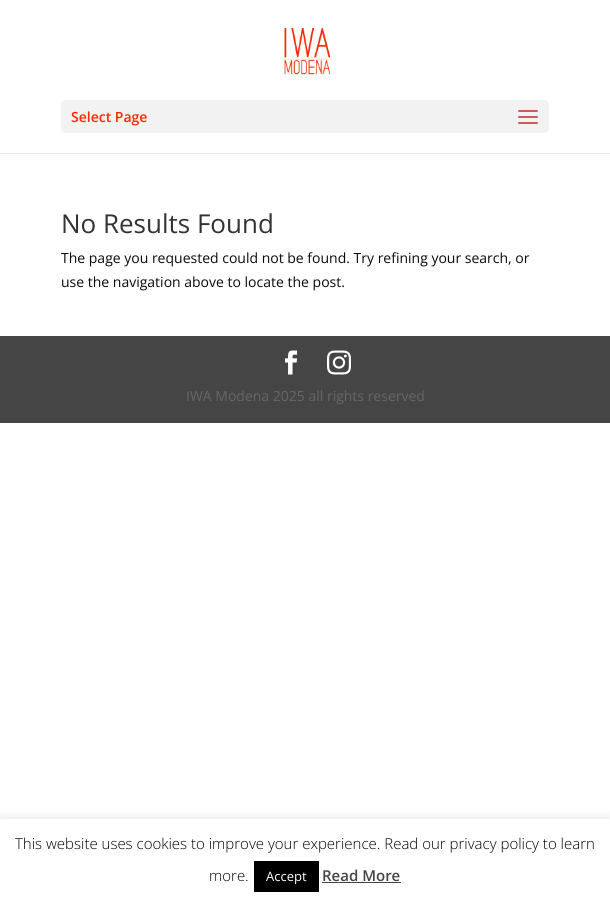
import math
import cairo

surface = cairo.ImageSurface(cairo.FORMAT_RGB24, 610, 904)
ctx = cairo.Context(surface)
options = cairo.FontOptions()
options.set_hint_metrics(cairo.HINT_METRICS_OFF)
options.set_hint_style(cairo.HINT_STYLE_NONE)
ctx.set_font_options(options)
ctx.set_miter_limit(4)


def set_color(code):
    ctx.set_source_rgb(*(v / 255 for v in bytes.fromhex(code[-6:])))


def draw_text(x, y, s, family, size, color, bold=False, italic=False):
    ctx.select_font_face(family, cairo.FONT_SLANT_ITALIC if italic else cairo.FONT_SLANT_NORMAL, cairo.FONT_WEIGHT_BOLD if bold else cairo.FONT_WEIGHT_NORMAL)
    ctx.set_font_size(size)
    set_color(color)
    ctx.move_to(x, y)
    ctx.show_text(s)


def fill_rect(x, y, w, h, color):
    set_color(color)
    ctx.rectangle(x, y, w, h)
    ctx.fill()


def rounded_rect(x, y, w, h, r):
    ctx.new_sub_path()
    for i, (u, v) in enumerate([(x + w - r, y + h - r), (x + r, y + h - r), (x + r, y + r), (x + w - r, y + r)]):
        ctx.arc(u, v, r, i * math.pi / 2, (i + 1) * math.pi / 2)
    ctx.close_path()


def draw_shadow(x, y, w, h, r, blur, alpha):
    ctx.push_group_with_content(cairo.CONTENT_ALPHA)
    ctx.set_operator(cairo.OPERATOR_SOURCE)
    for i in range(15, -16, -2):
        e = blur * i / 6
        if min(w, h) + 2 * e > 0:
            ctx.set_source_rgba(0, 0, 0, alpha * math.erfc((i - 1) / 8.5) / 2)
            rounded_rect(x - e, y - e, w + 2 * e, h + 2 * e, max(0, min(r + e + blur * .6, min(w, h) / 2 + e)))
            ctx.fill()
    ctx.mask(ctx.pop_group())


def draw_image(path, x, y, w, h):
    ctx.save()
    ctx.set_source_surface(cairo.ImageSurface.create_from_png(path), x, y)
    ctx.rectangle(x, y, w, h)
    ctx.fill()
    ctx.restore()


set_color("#ffffff")
ctx.paint()
fill_rect(0, 153, 610, 1, "#e6e6e6")
draw_image("assets/img1.png", 282, 28, 50, 47)
set_color("#f2f2f2")
rounded_rect(61, 100, 488, 33, 5)
ctx.fill()
draw_text(71, 122, "Select Page", "Open Sans SemiBold", 14, "#ff2800")
draw_image("assets/img2.png", 518, 110, 20, 14)
draw_text(61, 233, "No Results Found", "Open Sans", 26, "#333333")
draw_text(61, 263, "The page you requested could not be found. Try refining your search, or", "Open Sans", 14, "#0a0a0a")
draw_text(61, 287, "use the navigation above to locate the post.", "Open Sans", 14, "#0a0a0a")
fill_rect(0, 336, 610, 87, "#454545")
draw_image("assets/img3.png", 285, 350, 13, 25)
draw_image("assets/img4.png", 327, 350, 24, 25)
draw_text(186, 401, "IWA Modena 2025 all rights reserved", "Open Sans", 14, "#666666")
ctx.save()
ctx.rectangle(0, 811, 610, 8)
ctx.clip()
set_color("#acabab")
draw_shadow(0, 818, 610, 85, 0, 5, 0.3)
ctx.restore()
draw_text(15, 849, "This website uses cookies to improve your experience. Read our privacy policy to learn", "Open Sans Light", 15, "#000000")
draw_text(209, 881, "more.", "Open Sans Light", 15, "#000000")
fill_rect(254, 861, 65, 31, "#000000")
draw_text(266, 881, "Accept", "Open Sans", 13, "#ffffff")
draw_text(322, 881, "Read More", "Open Sans SemiBold", 15, "#444444")
fill_rect(322, 882, 79, 1, "#444444")
surface.write_to_png("output.png")
